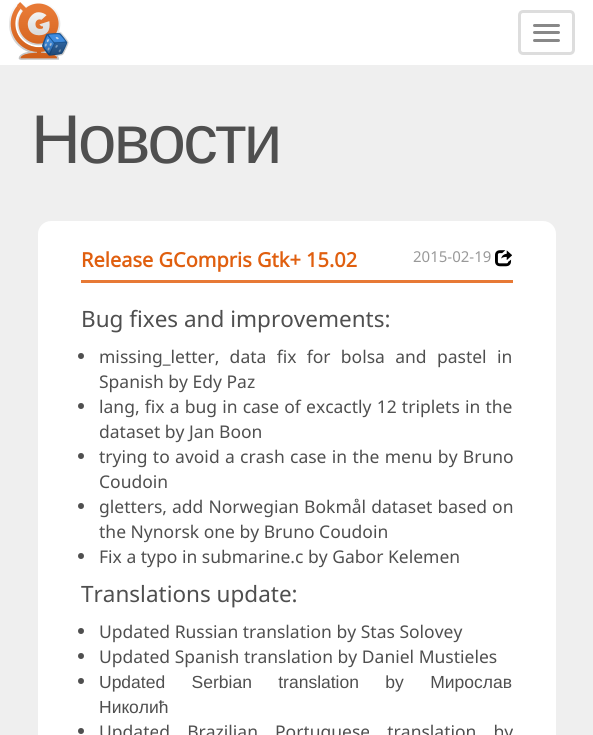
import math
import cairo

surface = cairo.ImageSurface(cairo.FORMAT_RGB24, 593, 735)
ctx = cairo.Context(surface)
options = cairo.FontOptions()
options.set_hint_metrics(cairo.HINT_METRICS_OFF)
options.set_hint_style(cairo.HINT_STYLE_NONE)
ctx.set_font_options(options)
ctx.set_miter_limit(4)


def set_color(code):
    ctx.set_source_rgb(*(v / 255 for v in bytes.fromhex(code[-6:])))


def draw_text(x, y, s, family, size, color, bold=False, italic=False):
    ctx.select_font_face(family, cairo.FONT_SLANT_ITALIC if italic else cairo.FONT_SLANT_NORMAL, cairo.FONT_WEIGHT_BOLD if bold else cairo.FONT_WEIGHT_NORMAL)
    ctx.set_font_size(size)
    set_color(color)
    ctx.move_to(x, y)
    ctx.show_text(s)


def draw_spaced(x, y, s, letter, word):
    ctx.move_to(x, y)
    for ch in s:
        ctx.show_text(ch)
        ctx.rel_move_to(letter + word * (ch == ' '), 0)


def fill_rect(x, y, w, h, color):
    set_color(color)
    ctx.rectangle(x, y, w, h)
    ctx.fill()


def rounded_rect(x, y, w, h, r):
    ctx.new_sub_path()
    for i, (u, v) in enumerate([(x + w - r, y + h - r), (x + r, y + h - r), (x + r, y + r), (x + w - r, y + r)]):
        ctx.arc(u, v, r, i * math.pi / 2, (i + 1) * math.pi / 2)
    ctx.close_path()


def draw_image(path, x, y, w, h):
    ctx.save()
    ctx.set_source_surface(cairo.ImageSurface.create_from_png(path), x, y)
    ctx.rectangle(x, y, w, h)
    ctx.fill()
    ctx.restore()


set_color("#efefef")
ctx.paint()
fill_rect(0, 0, 593, 65, "#ffffff")
draw_image("assets/img1.png", 9, 2, 60, 58)
rounded_rect(519.5, 11.5, 54, 42, 3.5)
set_color("#dddddd")
ctx.set_line_width(3)
ctx.stroke()
set_color("#888888")
rounded_rect(533, 24, 27, 3, 1.5)
ctx.fill()
rounded_rect(533, 31, 27, 3, 1.5)
ctx.fill()
rounded_rect(533, 39, 27, 3, 1.5)
ctx.fill()
ctx.select_font_face("Liberation Sans")
ctx.set_font_size(69)
set_color("#4f4f4f")
draw_spaced(31, 163, "Новости", -2.75, 0)
set_color("#ffffff")
rounded_rect(38, 221, 518, 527, 13)
ctx.fill()
draw_text(81, 267, "Release GCompris Gtk+ 15.02", "Noto Sans", 20, "#e05f0f", bold=True)
draw_text(413, 262, "2015-02-19", "Noto Sans", 15, "#999999")
draw_image("assets/img2.png", 495, 250, 17, 17)
fill_rect(81, 280, 432, 3, "#e77935")
draw_text(81, 327, "Bug fixes and improvements:", "Noto Sans", 22.5, "#4f4f4f")
ctx.new_path()
ctx.arc(81, 356, 3, 0, 2 * math.pi)
ctx.fill()
ctx.set_font_size(17.5)
draw_spaced(99, 363, "missing_letter, data fix for bolsa and pastel in", 0, 5.75)
draw_text(99, 388, "Spanish by Edy Paz", "Noto Sans", 17.5, "#4f4f4f")
ctx.new_path()
ctx.arc(81, 406, 3, 0, 2 * math.pi)
ctx.fill()
draw_spaced(99, 413, "lang, fix a bug in case of excactly 12 triplets in the", 0, 0.6)
draw_text(99, 438, "dataset by Jan Boon", "Noto Sans", 17.5, "#4f4f4f")
ctx.new_path()
ctx.arc(81, 456, 3, 0, 2 * math.pi)
ctx.fill()
draw_spaced(99, 463, "trying to avoid a crash case in the menu by Bruno", 0, 0.75)
draw_text(99, 488, "Coudoin", "Noto Sans", 17.5, "#4f4f4f")
ctx.new_path()
ctx.arc(81, 506, 3, 0, 2 * math.pi)
ctx.fill()
draw_spaced(99, 513, "gletters, add Norwegian Bokmål dataset based on", 0, 0.5)
draw_text(99, 538, "the Nynorsk one by Bruno Coudoin", "Noto Sans", 17.5, "#4f4f4f")
ctx.new_path()
ctx.arc(81, 556, 3, 0, 2 * math.pi)
ctx.fill()
draw_text(99, 563, "Fix a typo in submarine.c by Gabor Kelemen", "Noto Sans", 17.5, "#4f4f4f")
draw_text(81, 602, "Translations update:", "Noto Sans", 22.5, "#4f4f4f")
ctx.new_path()
ctx.arc(81, 631, 3, 0, 2 * math.pi)
ctx.fill()
draw_text(99, 638, "Updated Russian translation by Stas Solovey", "Noto Sans", 17.5, "#4f4f4f")
ctx.new_path()
ctx.arc(81, 656, 3, 0, 2 * math.pi)
ctx.fill()
draw_text(99, 663, "Updated Spanish translation by Daniel Mustieles", "Noto Sans", 17.5, "#4f4f4f")
ctx.new_path()
ctx.arc(81, 681, 3, 0, 2 * math.pi)
ctx.fill()
ctx.select_font_face("Liberation Sans")
draw_spaced(99, 688, "Updated Serbian translation by Мирослав", 0, 21.5)
draw_text(99, 713, "Николић", "Liberation Sans", 17.5, "#4f4f4f")
ctx.new_path()
ctx.arc(81, 731, 3, 0, 2 * math.pi)
ctx.fill()
ctx.select_font_face("Noto Sans")
draw_spaced(99, 738, "Updated Brazilian Portuguese translation by", 0, 12.5)
surface.write_to_png("output.png")
